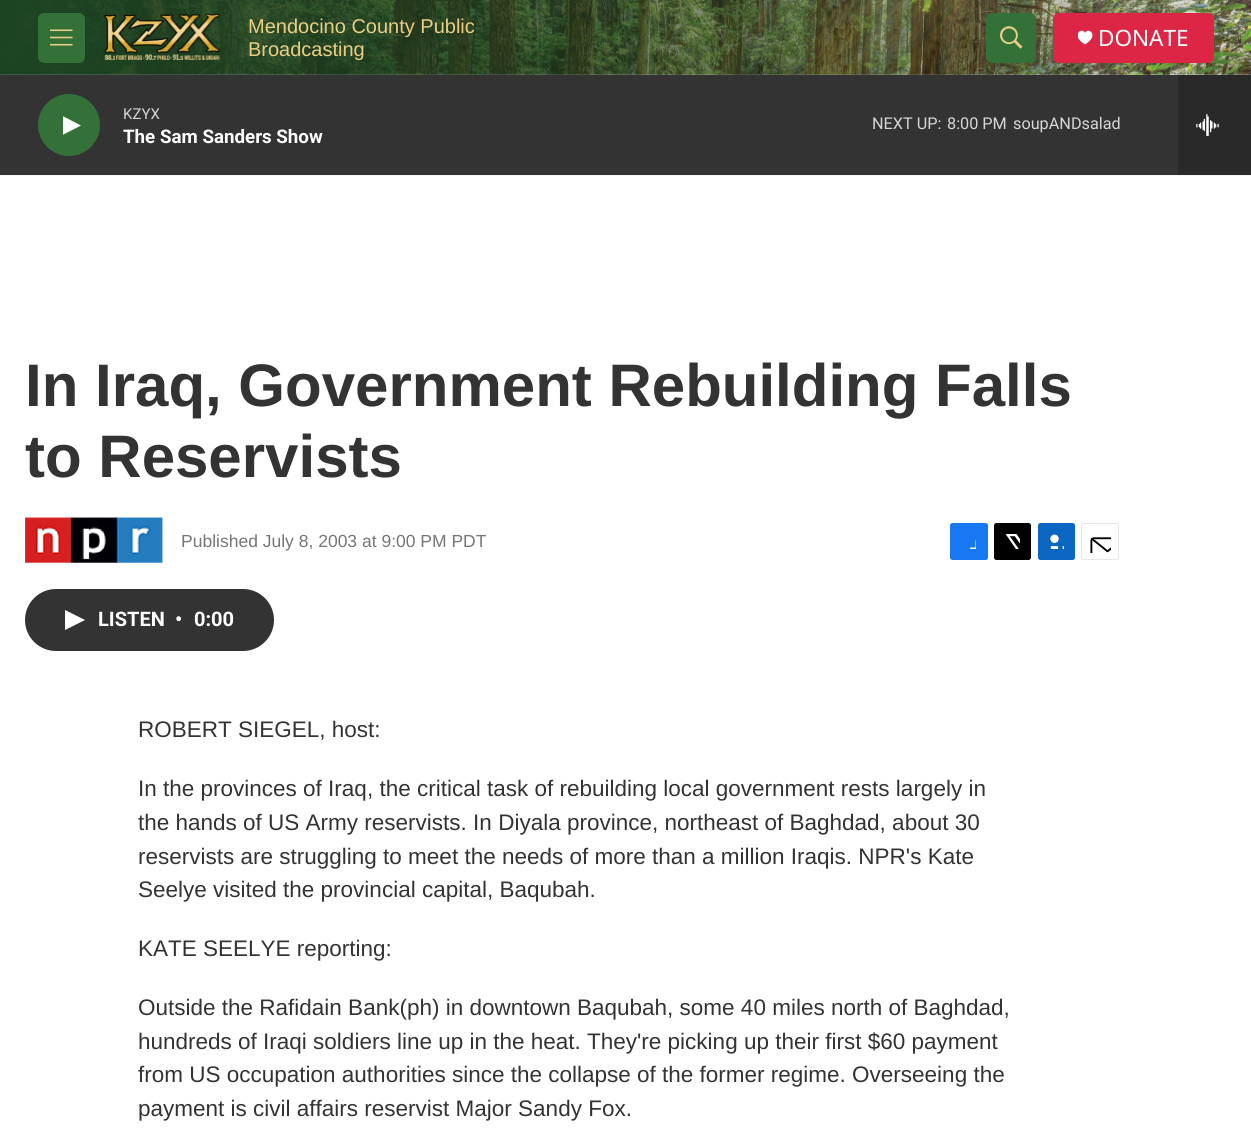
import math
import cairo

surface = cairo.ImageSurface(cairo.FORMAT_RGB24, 1251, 1144)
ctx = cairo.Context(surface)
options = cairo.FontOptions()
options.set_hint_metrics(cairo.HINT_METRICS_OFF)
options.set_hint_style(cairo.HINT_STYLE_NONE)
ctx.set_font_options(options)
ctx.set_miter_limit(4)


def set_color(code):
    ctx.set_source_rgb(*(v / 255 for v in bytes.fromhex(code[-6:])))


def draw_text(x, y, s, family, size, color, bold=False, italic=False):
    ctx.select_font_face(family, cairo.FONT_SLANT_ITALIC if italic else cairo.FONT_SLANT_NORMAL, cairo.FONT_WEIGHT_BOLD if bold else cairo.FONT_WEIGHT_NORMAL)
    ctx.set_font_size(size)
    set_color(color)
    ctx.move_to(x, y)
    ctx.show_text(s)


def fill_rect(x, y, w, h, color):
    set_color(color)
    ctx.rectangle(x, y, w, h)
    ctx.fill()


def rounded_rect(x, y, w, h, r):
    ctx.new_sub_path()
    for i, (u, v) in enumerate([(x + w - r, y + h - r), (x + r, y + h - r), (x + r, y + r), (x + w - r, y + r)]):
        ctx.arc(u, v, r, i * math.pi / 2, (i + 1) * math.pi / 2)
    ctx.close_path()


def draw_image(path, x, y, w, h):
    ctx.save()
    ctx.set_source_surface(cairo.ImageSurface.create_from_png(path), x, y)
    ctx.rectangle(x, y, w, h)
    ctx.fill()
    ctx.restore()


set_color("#ffffff")
ctx.paint()
fill_rect(0, 175, 1251, 1, "#f5f5f5")
draw_image("assets/img1.png", 0, 0, 1251, 75)
set_color("#337138")
rounded_rect(38, 13, 47, 50, 6)
ctx.fill()
draw_image("assets/img2.png", 50, 29, 23, 17)
draw_image("assets/img3.png", 103, 13, 117, 47)
draw_text(248, 33, "Mendocino County Public", "Liberation Sans", 20, "#e9ce86")
draw_text(248, 56, "Broadcasting", "Liberation Sans", 20, "#e9ce86")
set_color("#337138")
rounded_rect(986, 13, 50, 50, 6)
ctx.fill()
draw_image("assets/img4.png", 1000, 26, 23, 23)
set_color("#dd2646")
rounded_rect(1053, 13, 161, 50, 6)
ctx.fill()
ctx.save()
ctx.rectangle(1078, 30, 15, 15)
ctx.clip()
set_color("#ffffff")
ctx.new_path()
ctx.move_to(1085, 33)
ctx.curve_to(1082.5, 26.5, 1069.5, 35, 1085, 44.5)
ctx.curve_to(1100.5, 35, 1087.5, 26.5, 1085, 33)
ctx.close_path()
ctx.fill()
ctx.restore()
draw_text(1098, 46, "DONATE", "Noto Sans", 22.5, "#ffffff")
fill_rect(0, 75, 1178, 100, "#333333")
set_color("#337138")
ctx.new_path()
ctx.arc(69, 125, 31, 0, 2 * math.pi)
ctx.fill()
ctx.save()
ctx.rectangle(63, 114, 18, 24)
ctx.clip()
set_color("#ffffff")
ctx.new_path()
ctx.move_to(62.5, 116)
ctx.line_to(81, 125.5)
ctx.line_to(62.5, 135)
ctx.close_path()
ctx.fill()
ctx.restore()
draw_text(123, 119, "KZYX", "Roboto", 15, "#d6d6d6")
draw_text(123, 143, "The Sam Sanders Show", "Roboto", 18.75, "#ffffff", bold=True)
draw_text(872, 129, "NEXT UP:", "Roboto", 16.25, "#d6d6d6")
draw_text(947, 129, "8:00 PM", "Roboto", 16.25, "#d6d6d6")
draw_text(1013, 129, "soupANDsalad", "Roboto", 16.25, "#d6d6d6")
fill_rect(1178, 75, 73, 100, "#292929")
draw_image("assets/img5.png", 1196, 114, 23, 22)
draw_text(25, 406, "In Iraq, Government Rebuilding Falls", "Liberation Sans", 60, "#333333", bold=True)
draw_text(25, 477, "to Reservists", "Liberation Sans", 60, "#333333", bold=True)
draw_image("assets/img6.png", 25, 517, 138, 47)
draw_text(181, 547, "Published July 8, 2003 at 9:00 PM PDT", "Liberation Sans", 17.5, "#767676")
set_color("#1778f2")
rounded_rect(950, 523, 38, 37, 2.5)
ctx.fill()
draw_image("assets/img7.png", 970, 539, 6, 10)
set_color("#000000")
rounded_rect(994, 523, 37, 37, 2.5)
ctx.fill()
draw_image("assets/img8.png", 1005, 534, 15, 15)
set_color("#0a66c1")
rounded_rect(1038, 523, 37, 37, 2.5)
ctx.fill()
draw_image("assets/img9.png", 1050, 534, 14, 15)
rounded_rect(1081.5, 523.5, 37, 36, 2)
set_color("#e6e6e6")
ctx.set_line_width(1)
ctx.stroke()
draw_image("assets/img10.png", 1090, 537, 21, 16)
set_color("#333333")
rounded_rect(25, 589, 249, 62, 31)
ctx.fill()
set_color("#ffffff")
ctx.new_path()
ctx.move_to(65, 610)
ctx.line_to(85, 620)
ctx.line_to(65, 630)
ctx.close_path()
ctx.fill()
draw_text(98, 626, "LISTEN", "Roboto", 20, "#ffffff", bold=True)
draw_text(175, 626, "•", "Roboto", 20, "#ffffff", bold=True)
draw_text(194, 626, "0:00", "Roboto", 20, "#ffffff", bold=True)
draw_text(138, 737, "ROBERT SIEGEL, host:", "Liberation Sans", 22.5, "#333333")
draw_text(138, 796, "In the provinces of Iraq, the critical task of rebuilding local government rests largely in", "Liberation Sans", 22.5, "#333333")
draw_text(138, 830, "the hands of US Army reservists. In Diyala province, northeast of Baghdad, about 30", "Liberation Sans", 22.5, "#333333")
draw_text(138, 864, "reservists are struggling to meet the needs of more than a million Iraqis. NPR's Kate", "Liberation Sans", 22.5, "#333333")
draw_text(138, 897, "Seelye visited the provincial capital, Baqubah.", "Liberation Sans", 22.5, "#333333")
draw_text(138, 956, "KATE SEELYE reporting:", "Liberation Sans", 22.5, "#333333")
draw_text(138, 1015, "Outside the Rafidain Bank(ph) in downtown Baqubah, some 40 miles north of Baghdad,", "Liberation Sans", 22.5, "#333333")
draw_text(138, 1049, "hundreds of Iraqi soldiers line up in the heat. They're picking up their first $60 payment", "Liberation Sans", 22.5, "#333333")
draw_text(138, 1082, "from US occupation authorities since the collapse of the former regime. Overseeing the", "Liberation Sans", 22.5, "#333333")
draw_text(138, 1116, "payment is civil affairs reservist Major Sandy Fox.", "Liberation Sans", 22.5, "#333333")
surface.write_to_png("output.png")
